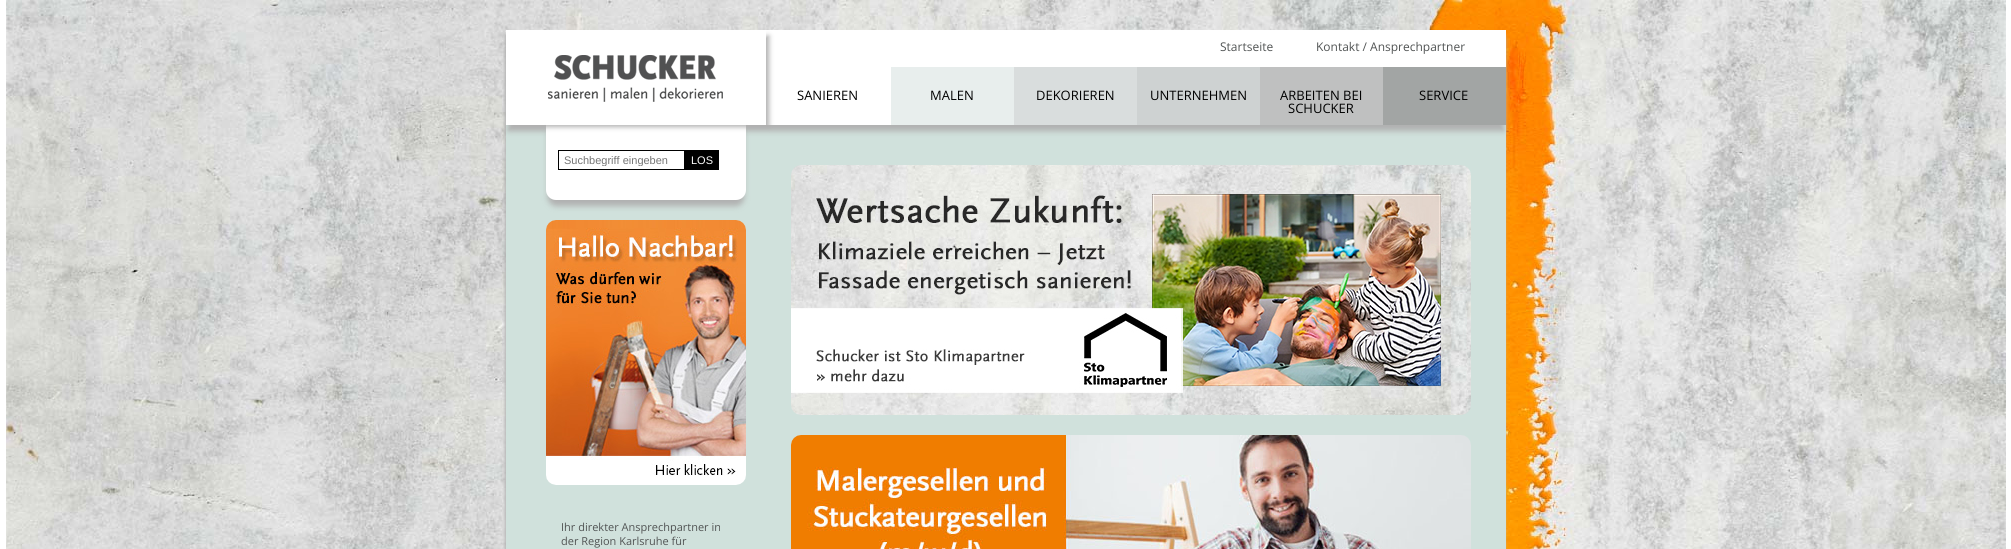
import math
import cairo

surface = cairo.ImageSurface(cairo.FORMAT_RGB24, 2011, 549)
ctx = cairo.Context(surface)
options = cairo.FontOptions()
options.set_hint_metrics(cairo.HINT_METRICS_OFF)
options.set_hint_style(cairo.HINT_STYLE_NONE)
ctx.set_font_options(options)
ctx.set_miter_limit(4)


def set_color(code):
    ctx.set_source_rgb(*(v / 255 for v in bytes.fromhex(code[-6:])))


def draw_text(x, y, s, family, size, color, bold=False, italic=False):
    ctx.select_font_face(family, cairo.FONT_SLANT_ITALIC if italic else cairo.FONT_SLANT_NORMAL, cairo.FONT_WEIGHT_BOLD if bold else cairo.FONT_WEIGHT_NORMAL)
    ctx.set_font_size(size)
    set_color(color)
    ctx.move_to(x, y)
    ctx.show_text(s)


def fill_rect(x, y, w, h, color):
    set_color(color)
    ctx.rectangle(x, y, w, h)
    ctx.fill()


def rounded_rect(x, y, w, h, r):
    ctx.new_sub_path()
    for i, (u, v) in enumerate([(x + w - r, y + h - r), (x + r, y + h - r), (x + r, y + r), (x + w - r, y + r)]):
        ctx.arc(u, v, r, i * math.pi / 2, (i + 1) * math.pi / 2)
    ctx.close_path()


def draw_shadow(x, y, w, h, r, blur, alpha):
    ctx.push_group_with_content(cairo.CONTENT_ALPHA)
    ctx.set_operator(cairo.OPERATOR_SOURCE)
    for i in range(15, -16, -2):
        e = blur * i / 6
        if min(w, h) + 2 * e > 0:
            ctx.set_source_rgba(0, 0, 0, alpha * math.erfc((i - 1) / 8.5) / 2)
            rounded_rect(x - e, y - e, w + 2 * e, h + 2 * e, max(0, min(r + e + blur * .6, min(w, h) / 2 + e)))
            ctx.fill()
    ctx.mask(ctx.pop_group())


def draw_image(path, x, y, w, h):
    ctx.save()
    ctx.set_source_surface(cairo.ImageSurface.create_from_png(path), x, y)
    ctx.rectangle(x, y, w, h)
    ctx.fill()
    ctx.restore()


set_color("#ffffff")
ctx.paint()
draw_image("assets/img1.png", 6, 0, 2000, 549)
set_color("#b0b0b0")
draw_shadow(505, 35, 1000, 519, 0, 1.5, 1)
fill_rect(506, 125, 1000, 424, "#d0e1dc")
set_color("#b0b0b0")
draw_shadow(508, 40, 996, 91, 0, 3, 1)
fill_rect(506, 30, 1000, 95, "#ffffff")
set_color("#b0b0b0")
draw_shadow(548, 125, 196, 81, 8, 3, 1)
set_color("#ffffff")
rounded_rect(546, 115, 200, 85, 10)
ctx.fill()
ctx.save()
ctx.set_fill_rule(cairo.FILL_RULE_EVEN_ODD)
ctx.new_path()
ctx.move_to(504, 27)
ctx.line_to(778, 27)
ctx.line_to(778, 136)
ctx.line_to(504, 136)
ctx.close_path()
ctx.move_to(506, 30)
ctx.line_to(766, 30)
ctx.line_to(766, 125)
ctx.line_to(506, 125)
ctx.close_path()
ctx.clip()
set_color("#b0b0b0")
draw_shadow(513, 36, 256, 91, 0, 2.5, 1)
ctx.restore()
draw_image("assets/img2.png", 548, 55, 175, 47)
draw_text(1220, 51, "Startseite", "Open Sans", 12, "#515454")
draw_text(1316, 51, "Kontakt / Ansprechpartner", "Open Sans", 12, "#515454")
draw_text(797, 100, "SANIEREN", "Open Sans", 13, "#000000")
fill_rect(891, 67, 123, 58, "#e8eeed")
draw_text(930, 100, "MALEN", "Open Sans", 13, "#000000")
fill_rect(1014, 67, 123, 58, "#d9dddd")
draw_text(1036, 100, "DEKORIEREN", "Open Sans", 13, "#000000")
fill_rect(1137, 67, 123, 58, "#ced2d2")
draw_text(1150, 100, "UNTERNEHMEN", "Open Sans", 13, "#000000")
fill_rect(1260, 67, 123, 58, "#bfc0c0")
draw_text(1280, 100, "ARBEITEN BEI", "Open Sans", 13, "#000000")
draw_text(1288, 113, "SCHUCKER", "Open Sans", 13, "#000000")
fill_rect(1383, 67, 123, 58, "#a2a5a4")
draw_text(1419, 100, "SERVICE", "Open Sans", 13, "#000000")
ctx.rectangle(558.5, 150.5, 126, 19)
ctx.set_line_width(1)
ctx.stroke()
ctx.save()
ctx.rectangle(564, 154, 115, 12)
ctx.clip()
draw_text(564, 164, "Suchbegriff eingeben", "Liberation Sans", 11, "#757575")
ctx.restore()
fill_rect(685, 150, 34, 20, "#000000")
draw_text(691, 164, "LOS", "Liberation Sans", 11, "#ffffff")
draw_image("assets/img3.png", 546, 220, 200, 265)
draw_text(561, 531, "Ihr direkter Ansprechpartner in", "Open Sans", 11, "#515454")
draw_text(561, 545, "der Region Karlsruhe für", "Open Sans", 11, "#515454")
draw_image("assets/img4.png", 791, 165, 680, 250)
draw_image("assets/img5.png", 791, 435, 680, 114)
surface.write_to_png("output.png")
